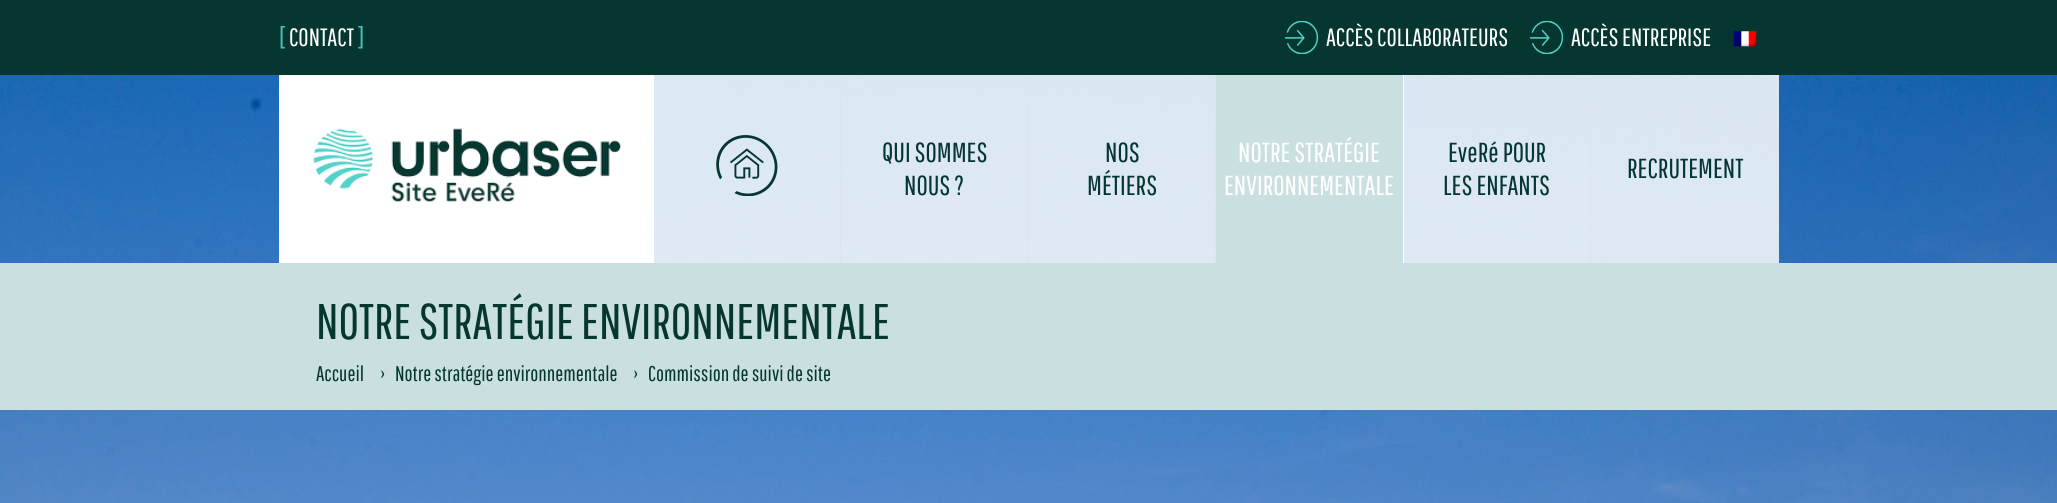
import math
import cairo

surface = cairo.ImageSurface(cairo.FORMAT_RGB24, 2057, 503)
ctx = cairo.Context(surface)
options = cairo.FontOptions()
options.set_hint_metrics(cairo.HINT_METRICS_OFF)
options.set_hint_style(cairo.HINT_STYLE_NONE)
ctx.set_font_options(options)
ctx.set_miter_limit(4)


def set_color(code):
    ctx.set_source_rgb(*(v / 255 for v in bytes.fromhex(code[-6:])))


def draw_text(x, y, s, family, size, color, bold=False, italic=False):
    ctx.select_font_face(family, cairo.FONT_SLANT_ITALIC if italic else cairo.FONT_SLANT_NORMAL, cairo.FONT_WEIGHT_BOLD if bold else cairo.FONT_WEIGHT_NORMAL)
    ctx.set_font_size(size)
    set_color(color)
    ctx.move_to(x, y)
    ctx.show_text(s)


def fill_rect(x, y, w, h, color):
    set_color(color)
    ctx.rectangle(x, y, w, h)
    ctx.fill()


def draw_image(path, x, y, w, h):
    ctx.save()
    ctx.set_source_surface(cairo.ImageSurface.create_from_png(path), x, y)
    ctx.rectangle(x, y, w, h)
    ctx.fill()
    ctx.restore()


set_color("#053630")
ctx.paint()
draw_text(279, 46, "[", "Pathway Gothic One", 25, "#48beb6")
draw_text(289, 46, "CONTACT", "Pathway Gothic One", 25, "#ffffff")
draw_text(358, 46, "]", "Pathway Gothic One", 25, "#48beb6")
draw_image("assets/img1.png", 1285, 21, 34, 33)
draw_text(1326, 46, "ACCÈS COLLABORATEURS", "Pathway Gothic One", 25, "#ffffff")
draw_image("assets/img2.png", 1530, 21, 33, 33)
draw_text(1571, 46, "ACCÈS ENTREPRISE", "Pathway Gothic One", 25, "#ffffff")
draw_image("assets/img3.png", 1733, 31, 24, 16)
draw_image("assets/img4.png", 0, 75, 2057, 428)
fill_rect(279, 75, 375, 188, "#ffffff")
draw_image("assets/img5.png", 313, 128, 308, 74)
ctx.set_source_rgba(1, 1, 1, 0.84)
ctx.rectangle(654, 75, 186, 188)
ctx.fill()
fill_rect(840, 75, 1, 188, "#dee4e7")
draw_image("assets/img6.png", 716, 135, 62, 61)
ctx.set_source_rgba(1, 1, 1, 0.84)
ctx.rectangle(841, 75, 187, 188)
ctx.fill()
fill_rect(1028, 75, 1, 188, "#dee4e7")
draw_text(882, 162, "QUI SOMMES", "Pathway Gothic One", 27.5, "#053630")
draw_text(904, 195, "NOUS ?", "Pathway Gothic One", 27.5, "#053630")
ctx.set_source_rgba(1, 1, 1, 0.84)
ctx.rectangle(1029, 75, 186, 188)
ctx.fill()
fill_rect(1215, 75, 1, 188, "#dee4e7")
draw_text(1105, 162, "NOS", "Pathway Gothic One", 27.5, "#053630")
draw_text(1087, 195, "MÉTIERS", "Pathway Gothic One", 27.5, "#053630")
fill_rect(1216, 75, 187, 188, "#cae0e0")
fill_rect(1403, 75, 1, 188, "#ffffff")
draw_text(1238, 162, "NOTRE STRATÉGIE", "Pathway Gothic One", 27.5, "#ffffff")
draw_text(1224, 195, "ENVIRONNEMENTALE", "Pathway Gothic One", 27.5, "#ffffff")
ctx.set_source_rgba(1, 1, 1, 0.84)
ctx.rectangle(1404, 75, 186, 188)
ctx.fill()
fill_rect(1590, 75, 1, 188, "#dee4e7")
draw_text(1448, 162, "EveRé POUR", "Pathway Gothic One", 27.5, "#053630")
draw_text(1443, 195, "LES ENFANTS", "Pathway Gothic One", 27.5, "#053630")
ctx.set_source_rgba(1, 1, 1, 0.84)
ctx.rectangle(1591, 75, 188, 188)
ctx.fill()
draw_text(1627, 178, "RECRUTEMENT", "Pathway Gothic One", 27.5, "#053630")
fill_rect(0, 263, 2057, 147, "#cae0e0")
draw_text(316, 339, "NOTRE STRATÉGIE ENVIRONNEMENTALE", "Pathway Gothic One", 50, "#053630")
draw_text(316, 381, "Accueil", "Pathway Gothic One", 21.25, "#053630")
draw_text(381, 381, "›", "Pathway Gothic One", 21.25, "#053630")
draw_text(395, 381, "Notre stratégie environnementale", "Pathway Gothic One", 21.25, "#053630")
draw_text(634, 381, "›", "Pathway Gothic One", 21.25, "#053630")
draw_text(648, 381, "Commission de suivi de site", "Pathway Gothic One", 21.25, "#053630")
surface.write_to_png("output.png")
